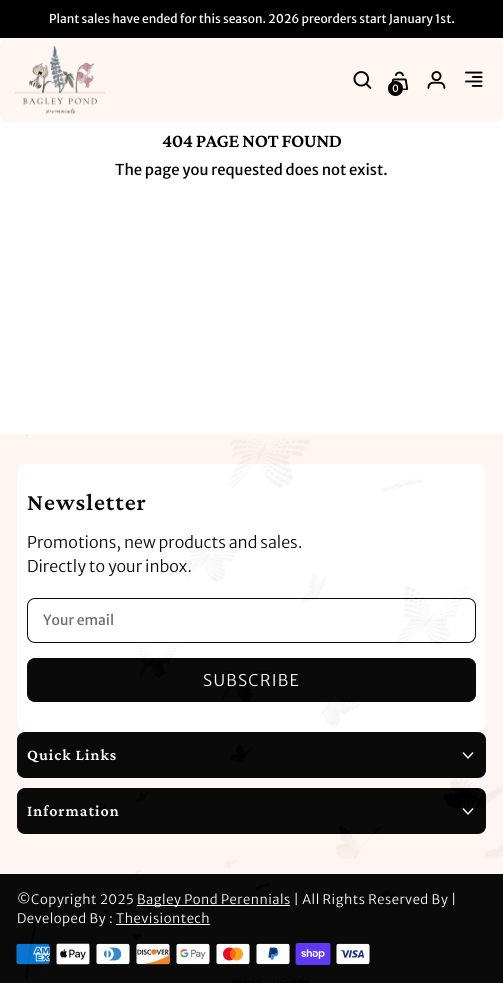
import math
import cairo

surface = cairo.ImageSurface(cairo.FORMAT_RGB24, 503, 983)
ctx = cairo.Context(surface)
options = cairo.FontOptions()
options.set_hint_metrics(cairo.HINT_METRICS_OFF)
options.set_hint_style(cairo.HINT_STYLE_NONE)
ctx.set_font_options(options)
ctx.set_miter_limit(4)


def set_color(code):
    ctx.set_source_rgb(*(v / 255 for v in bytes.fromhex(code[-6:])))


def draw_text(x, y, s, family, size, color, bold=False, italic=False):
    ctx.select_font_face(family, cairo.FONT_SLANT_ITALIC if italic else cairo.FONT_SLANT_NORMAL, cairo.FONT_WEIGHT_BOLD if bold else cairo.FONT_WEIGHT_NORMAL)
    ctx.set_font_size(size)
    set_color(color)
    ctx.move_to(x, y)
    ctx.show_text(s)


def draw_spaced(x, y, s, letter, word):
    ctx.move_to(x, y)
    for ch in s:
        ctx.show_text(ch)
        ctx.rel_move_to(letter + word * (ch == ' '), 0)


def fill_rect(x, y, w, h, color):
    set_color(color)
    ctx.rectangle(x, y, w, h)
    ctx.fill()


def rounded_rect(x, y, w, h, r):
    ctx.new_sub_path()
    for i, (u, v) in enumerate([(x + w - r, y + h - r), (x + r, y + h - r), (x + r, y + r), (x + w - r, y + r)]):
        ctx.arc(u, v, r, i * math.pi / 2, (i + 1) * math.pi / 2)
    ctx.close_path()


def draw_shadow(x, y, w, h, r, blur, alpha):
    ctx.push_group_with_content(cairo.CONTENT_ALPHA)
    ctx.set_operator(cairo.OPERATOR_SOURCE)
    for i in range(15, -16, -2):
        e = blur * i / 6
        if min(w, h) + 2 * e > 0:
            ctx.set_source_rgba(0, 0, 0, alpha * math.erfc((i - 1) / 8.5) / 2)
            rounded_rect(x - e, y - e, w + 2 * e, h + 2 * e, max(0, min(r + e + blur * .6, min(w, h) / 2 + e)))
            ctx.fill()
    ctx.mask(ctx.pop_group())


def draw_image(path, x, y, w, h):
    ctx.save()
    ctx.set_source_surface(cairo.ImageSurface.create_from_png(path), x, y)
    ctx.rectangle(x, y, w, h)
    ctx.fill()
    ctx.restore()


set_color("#ffffff")
ctx.paint()
fill_rect(0, 0, 503, 38, "#000000")
draw_text(49, 23, "Plant sales have ended for this season. 2026 preorders start January 1st.", "Merriweather Sans", 12, "#ffffff")
set_color("#fff6f2")
rounded_rect(0, 38, 503, 84, 8)
ctx.fill()
draw_image("assets/img1.png", 15, 46, 90, 68)
draw_image("assets/img2.png", 353, 71, 19, 18)
draw_image("assets/img3.png", 427, 71, 19, 18)
draw_image("assets/img4.png", 465, 71, 18, 16)
draw_image("assets/img5.png", 391, 71, 18, 19)
set_color("#000000")
ctx.arc(395.5, 88.5, 7.5, 0, 2 * math.pi)
ctx.fill()
draw_text(392, 92, "0", "Merriweather Sans", 10, "#fff6f2")
ctx.select_font_face("Crimson Pro SemiBold")
ctx.set_font_size(19.5)
set_color("#000000")
draw_spaced(162, 147, "404 PAGE NOT FOUND", -0.5, 0)
draw_text(115, 175, "The page you requested does not exist.", "Merriweather Sans", 14.9, "#000000")
fill_rect(0, 434, 503, 440, "#fff6f2")
set_color("#000000")
draw_shadow(17, 465, 469, 268, 10, 1, 0.05)
set_color("#ffffff")
rounded_rect(17, 464, 469, 268, 10)
ctx.fill()
ctx.select_font_face("Crimson Pro SemiBold")
ctx.set_font_size(24)
set_color("#000000")
draw_spaced(27, 510, "Newsletter", 1, 0)
draw_text(27, 548, "Promotions, new products and sales.", "Merriweather Sans Light", 16, "#000000")
draw_text(27, 572, "Directly to your inbox.", "Merriweather Sans Light", 16, "#000000")
rounded_rect(27.5, 598.5, 448, 44, 7.5)
ctx.set_line_width(1)
ctx.stroke()
draw_text(43, 625, "Your email", "Merriweather Sans", 14, "#666666")
set_color("#000000")
rounded_rect(27.5, 658.5, 448, 43, 7.5)
ctx.fill_preserve()
ctx.stroke()
ctx.select_font_face("Merriweather Sans Light")
ctx.set_font_size(16)
set_color("#ffffff")
draw_spaced(203, 686, "SUBSCRIBE", 1.25, 0)
set_color("#000000")
rounded_rect(17, 732, 469, 46, 8)
ctx.fill()
ctx.select_font_face("Crimson Pro SemiBold")
set_color("#ffffff")
draw_spaced(27, 760, "Quick Links", 1, 0)
ctx.new_path()
ctx.move_to(463, 752.5)
ctx.line_to(468, 758)
ctx.line_to(473, 752.5)
ctx.set_line_width(1.4)
ctx.stroke()
set_color("#000000")
rounded_rect(17, 788, 469, 46, 8)
ctx.fill()
set_color("#ffffff")
draw_spaced(27, 816, "Information", 1, 0)
ctx.new_path()
ctx.move_to(463, 808.5)
ctx.line_to(468, 814)
ctx.line_to(473, 808.5)
ctx.stroke()
fill_rect(0, 874, 503, 109, "#000000")
ctx.select_font_face("Merriweather Sans Light")
ctx.set_font_size(13)
set_color("#ffffff")
draw_spaced(17, 904, "©Copyright 2025", 0.5, 0)
fill_rect(137, 905, 153, 1, "#ffffff")
draw_spaced(137, 904, "Bagley Pond Perennials | All Rights Reserved By |", 0.5, 0)
draw_spaced(17, 923, "Developed By : Thevisiontech", 0.5, 0)
fill_rect(116, 924, 94, 1, "#ffffff")
draw_image("assets/img7.png", 16, 943, 34, 22)
draw_image("assets/img8.png", 56, 943, 34, 22)
draw_image("assets/img9.png", 96, 943, 34, 22)
draw_image("assets/img10.png", 136, 943, 34, 22)
draw_image("assets/img11.png", 176, 943, 34, 22)
draw_image("assets/img12.png", 216, 943, 34, 22)
draw_image("assets/img13.png", 256, 943, 34, 22)
draw_image("assets/img14.png", 295, 943, 36, 22)
draw_image("assets/img15.png", 336, 943, 34, 22)
draw_image("assets/img6.png", 0, 434, 503, 549)
surface.write_to_png("output.png")
